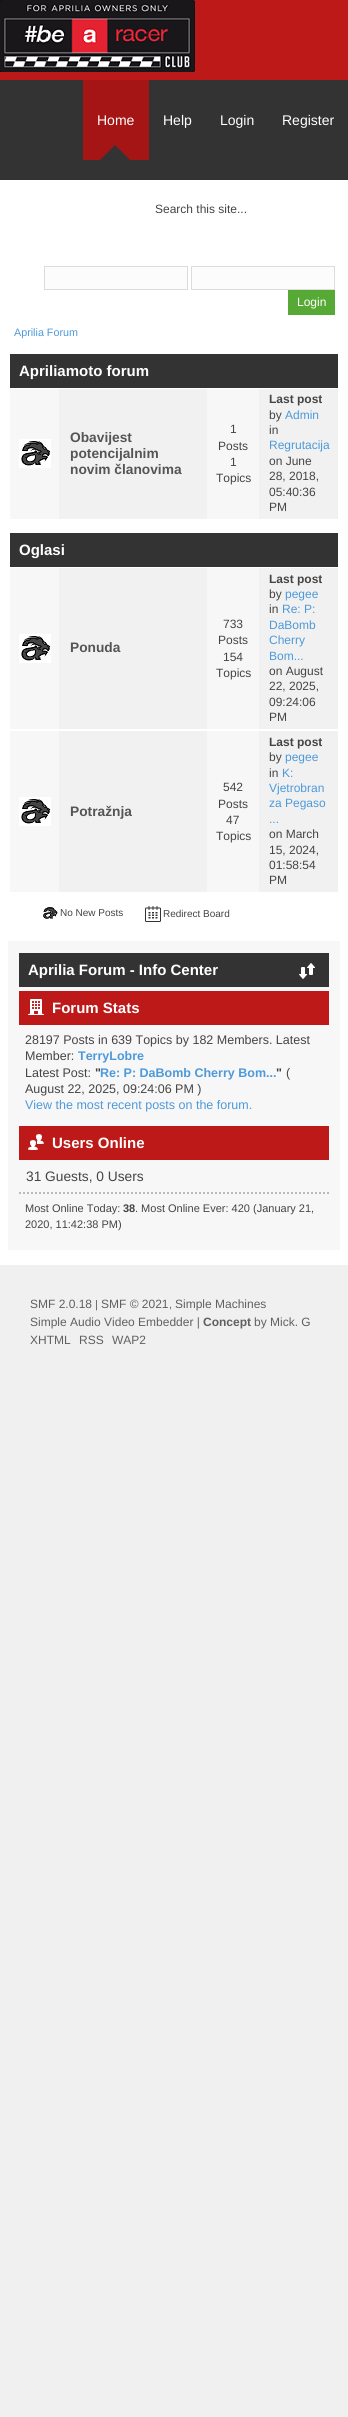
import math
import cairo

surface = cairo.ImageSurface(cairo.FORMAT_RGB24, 348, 2417)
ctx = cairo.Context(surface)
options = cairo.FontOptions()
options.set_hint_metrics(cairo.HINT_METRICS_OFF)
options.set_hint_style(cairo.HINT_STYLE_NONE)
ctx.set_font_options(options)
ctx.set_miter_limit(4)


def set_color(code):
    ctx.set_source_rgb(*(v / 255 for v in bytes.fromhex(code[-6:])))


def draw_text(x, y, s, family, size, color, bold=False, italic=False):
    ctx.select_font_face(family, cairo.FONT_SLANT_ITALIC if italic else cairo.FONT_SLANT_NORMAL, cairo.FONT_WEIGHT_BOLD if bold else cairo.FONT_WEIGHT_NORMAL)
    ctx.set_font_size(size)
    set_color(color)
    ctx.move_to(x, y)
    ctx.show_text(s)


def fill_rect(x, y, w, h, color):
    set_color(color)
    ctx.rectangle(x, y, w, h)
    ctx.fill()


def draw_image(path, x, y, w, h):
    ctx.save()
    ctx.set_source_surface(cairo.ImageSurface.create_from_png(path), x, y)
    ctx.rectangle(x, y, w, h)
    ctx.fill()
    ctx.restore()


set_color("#f0f0f0")
ctx.paint()
fill_rect(0, 180, 348, 1085, "#ffffff")
fill_rect(0, 0, 348, 80, "#bd1919")
draw_image("assets/img1.png", 0, 0, 195, 72)
fill_rect(0, 80, 348, 100, "#333333")
fill_rect(83, 80, 66, 80, "#a61515")
draw_text(97, 125, "Home", "Liberation Sans", 14, "#ffffff")
set_color("#333333")
ctx.new_path()
ctx.move_to(130, 160)
ctx.line_to(100, 160)
ctx.line_to(115, 145)
ctx.close_path()
ctx.fill()
draw_text(163, 125, "Help", "Liberation Sans", 14, "#ffffff")
draw_text(220, 125, "Login", "Liberation Sans", 14, "#ffffff")
draw_text(282, 125, "Register", "Liberation Sans", 14, "#ffffff")
draw_text(155, 213, "Search this site...", "Liberation Sans", 12, "#444444")
set_color("#fcfcfc")
ctx.rectangle(44.5, 266.5, 143, 23)
ctx.fill_preserve()
set_color("#dcdcdc")
ctx.set_line_width(1)
ctx.stroke()
set_color("#fcfcfc")
ctx.rectangle(191.5, 266.5, 143, 23)
ctx.fill_preserve()
set_color("#dcdcdc")
ctx.stroke()
fill_rect(288, 290, 47, 25, "#57a935")
draw_text(297, 306, "Login", "Liberation Sans", 12, "#ffffff")
draw_text(14, 336, "Aprilia Forum", "Liberation Sans", 10.75, "#4d99da")
fill_rect(10, 354, 328, 34, "#333333")
draw_text(19, 376, "Apriliamoto forum", "Liberation Sans", 15, "#ffffff", bold=True)
fill_rect(59, 389, 279, 130, "#f1f1f1")
fill_rect(10, 389, 49, 130, "#f7f7f7")
draw_image("assets/img2.png", 19, 439, 32, 29)
draw_text(70, 442, "Obavijest", "Liberation Sans", 13.75, "#555555", bold=True)
draw_text(70, 458, "potencijalnim", "Liberation Sans", 13.75, "#555555", bold=True)
draw_text(70, 474, "novim članovima", "Liberation Sans", 13.75, "#555555", bold=True)
fill_rect(207, 389, 52, 130, "#f7f7f7")
draw_text(230, 433, "1", "Liberation Sans", 12, "#444444")
draw_text(218, 450, "Posts", "Liberation Sans", 12, "#444444")
draw_text(230, 466, "1", "Liberation Sans", 12, "#444444")
draw_text(216, 482, "Topics", "Liberation Sans", 12, "#444444")
draw_text(269, 403, "Last post", "Liberation Sans", 12, "#444444", bold=True)
draw_text(269, 419, "by", "Liberation Sans", 12, "#444444")
draw_text(285, 419, "Admin", "Liberation Sans", 12, "#4d99da")
draw_text(269, 434, "in", "Liberation Sans", 12, "#444444")
draw_text(269, 449, "Regrutacija", "Liberation Sans", 12, "#4d99da")
draw_text(269, 465, "on June", "Liberation Sans", 12, "#444444")
draw_text(269, 480, "28, 2018,", "Liberation Sans", 12, "#444444")
draw_text(269, 496, "05:40:36", "Liberation Sans", 12, "#444444")
draw_text(269, 511, "PM", "Liberation Sans", 12, "#444444")
fill_rect(10, 533, 328, 34, "#333333")
draw_text(19, 555, "Oglasi", "Liberation Sans", 15, "#ffffff", bold=True)
fill_rect(59, 568, 279, 161, "#f1f1f1")
fill_rect(10, 568, 49, 161, "#f7f7f7")
draw_image("assets/img2.png", 19, 634, 32, 29)
draw_text(70, 652, "Ponuda", "Liberation Sans", 13.75, "#555555", bold=True)
fill_rect(207, 568, 52, 161, "#f7f7f7")
draw_text(223, 628, "733", "Liberation Sans", 12, "#444444")
draw_text(218, 644, "Posts", "Liberation Sans", 12, "#444444")
draw_text(223, 661, "154", "Liberation Sans", 12, "#444444")
draw_text(216, 677, "Topics", "Liberation Sans", 12, "#444444")
draw_text(269, 583, "Last post", "Liberation Sans", 12, "#444444", bold=True)
draw_text(269, 598, "by", "Liberation Sans", 12, "#444444")
draw_text(285, 598, "pegee", "Liberation Sans", 12, "#4d99da")
draw_text(269, 613, "in", "Liberation Sans", 12, "#444444")
draw_text(282, 613, "Re: P:", "Liberation Sans", 12, "#4d99da")
draw_text(269, 629, "DaBomb", "Liberation Sans", 12, "#4d99da")
draw_text(269, 644, "Cherry", "Liberation Sans", 12, "#4d99da")
draw_text(269, 660, "Bom...", "Liberation Sans", 12, "#4d99da")
draw_text(269, 675, "on August", "Liberation Sans", 12, "#444444")
draw_text(269, 690, "22, 2025,", "Liberation Sans", 12, "#444444")
draw_text(269, 706, "09:24:06", "Liberation Sans", 12, "#444444")
draw_text(269, 721, "PM", "Liberation Sans", 12, "#444444")
fill_rect(59, 731, 279, 161, "#f1f1f1")
fill_rect(10, 731, 49, 161, "#f7f7f7")
draw_image("assets/img2.png", 19, 797, 32, 29)
draw_text(70, 816, "Potražnja", "Liberation Sans", 13.75, "#555555", bold=True)
fill_rect(207, 731, 52, 161, "#f7f7f7")
draw_text(223, 791, "542", "Liberation Sans", 12, "#444444")
draw_text(218, 808, "Posts", "Liberation Sans", 12, "#444444")
draw_text(226, 824, "47", "Liberation Sans", 12, "#444444")
draw_text(216, 840, "Topics", "Liberation Sans", 12, "#444444")
draw_text(269, 746, "Last post", "Liberation Sans", 12, "#444444", bold=True)
draw_text(269, 761, "by", "Liberation Sans", 12, "#444444")
draw_text(285, 761, "pegee", "Liberation Sans", 12, "#4d99da")
draw_text(269, 777, "in", "Liberation Sans", 12, "#444444")
draw_text(282, 777, "K:", "Liberation Sans", 12, "#4d99da")
draw_text(269, 792, "Vjetrobran", "Liberation Sans", 12, "#4d99da")
draw_text(269, 807, "za Pegaso", "Liberation Sans", 12, "#4d99da")
draw_text(269, 823, "...", "Liberation Sans", 12, "#4d99da")
draw_text(269, 838, "on March", "Liberation Sans", 12, "#444444")
draw_text(269, 854, "15, 2024,", "Liberation Sans", 12, "#444444")
draw_text(269, 869, "01:58:54", "Liberation Sans", 12, "#444444")
draw_text(269, 884, "PM", "Liberation Sans", 12, "#444444")
draw_image("assets/img3.png", 43, 907, 15, 12)
draw_text(60, 916, "No New Posts", "Liberation Sans", 10, "#444444")
draw_image("assets/img4.png", 145, 906, 16, 16)
draw_text(163, 917, "Redirect Board", "Liberation Sans", 10, "#444444")
fill_rect(8, 941, 332, 309, "#f7f7f7")
fill_rect(19, 953, 310, 34, "#333333")
draw_text(28, 975, "Aprilia Forum - Info Center", "Liberation Sans", 15, "#ffffff", bold=True)
draw_image("assets/img5.png", 299, 963, 16, 16)
fill_rect(19, 991, 310, 34, "#bd1919")
draw_image("assets/img6.png", 28, 999, 16, 16)
draw_text(52, 1013, "Forum Stats", "Liberation Sans", 15, "#ffffff", bold=True)
draw_text(25, 1044, "28197 Posts in 639 Topics by 182 Members. Latest", "Liberation Sans", 12.5, "#444444")
draw_text(25, 1060, "Member:", "Liberation Sans", 12.5, "#444444")
draw_text(78, 1060, "TerryLobre", "Liberation Sans", 12.5, "#4d99da", bold=True)
draw_text(25, 1077, "Latest Post:", "Liberation Sans", 12.5, "#444444")
draw_text(95, 1077, "\"", "Liberation Sans", 12.5, "#444444", bold=True)
draw_text(100, 1077, "Re: P: DaBomb Cherry Bom...", "Liberation Sans", 12.5, "#4d99da", bold=True)
draw_text(276, 1077, "\"", "Liberation Sans", 12.5, "#444444", bold=True)
draw_text(286, 1077, "(", "Liberation Sans", 12.5, "#444444")
draw_text(25, 1093, "August 22, 2025, 09:24:06 PM )", "Liberation Sans", 12.5, "#444444")
draw_text(25, 1109, "View the most recent posts on the forum.", "Liberation Sans", 12.5, "#4d99da")
fill_rect(19, 1126, 310, 34, "#bd1919")
draw_image("assets/img7.png", 28, 1134, 16, 16)
draw_text(52, 1148, "Users Online", "Liberation Sans", 15, "#ffffff", bold=True)
draw_text(26, 1181, "31 Guests, 0 Users", "Liberation Sans", 13.75, "#444444")
ctx.new_path()
ctx.move_to(19, 1193)
ctx.line_to(329, 1193)
set_color("#bbbbbb")
ctx.set_line_width(2)
ctx.set_dash([2, 2])
ctx.stroke()
draw_text(25, 1212, "Most Online Today:", "Liberation Sans", 11, "#444444")
draw_text(123, 1212, "38", "Liberation Sans", 11, "#444444", bold=True)
draw_text(135, 1212, ". Most Online Ever: 420 (January 21,", "Liberation Sans", 11, "#444444")
draw_text(25, 1228, "2020, 11:42:38 PM)", "Liberation Sans", 11, "#444444")
draw_text(30, 1308, "SMF 2.0.18", "Liberation Sans", 12, "#606060")
draw_text(95, 1308, "|", "Liberation Sans", 11, "#606060")
draw_text(101, 1308, "SMF © 2021", "Liberation Sans", 12, "#606060")
draw_text(169, 1308, ",", "Liberation Sans", 11, "#606060")
draw_text(175, 1308, "Simple Machines", "Liberation Sans", 12, "#606060")
draw_text(30, 1326, "Simple Audio Video Embedder |", "Liberation Sans", 12, "#606060")
draw_text(203, 1326, "Concept", "Liberation Sans", 12, "#606060", bold=True)
draw_text(254, 1326, "by Mick. G", "Liberation Sans", 12, "#606060")
draw_text(30, 1344, "XHTML", "Liberation Sans", 12, "#606060")
draw_text(79, 1344, "RSS", "Liberation Sans", 12, "#606060")
draw_text(112, 1344, "WAP2", "Liberation Sans", 12, "#606060")
surface.write_to_png("output.png")
